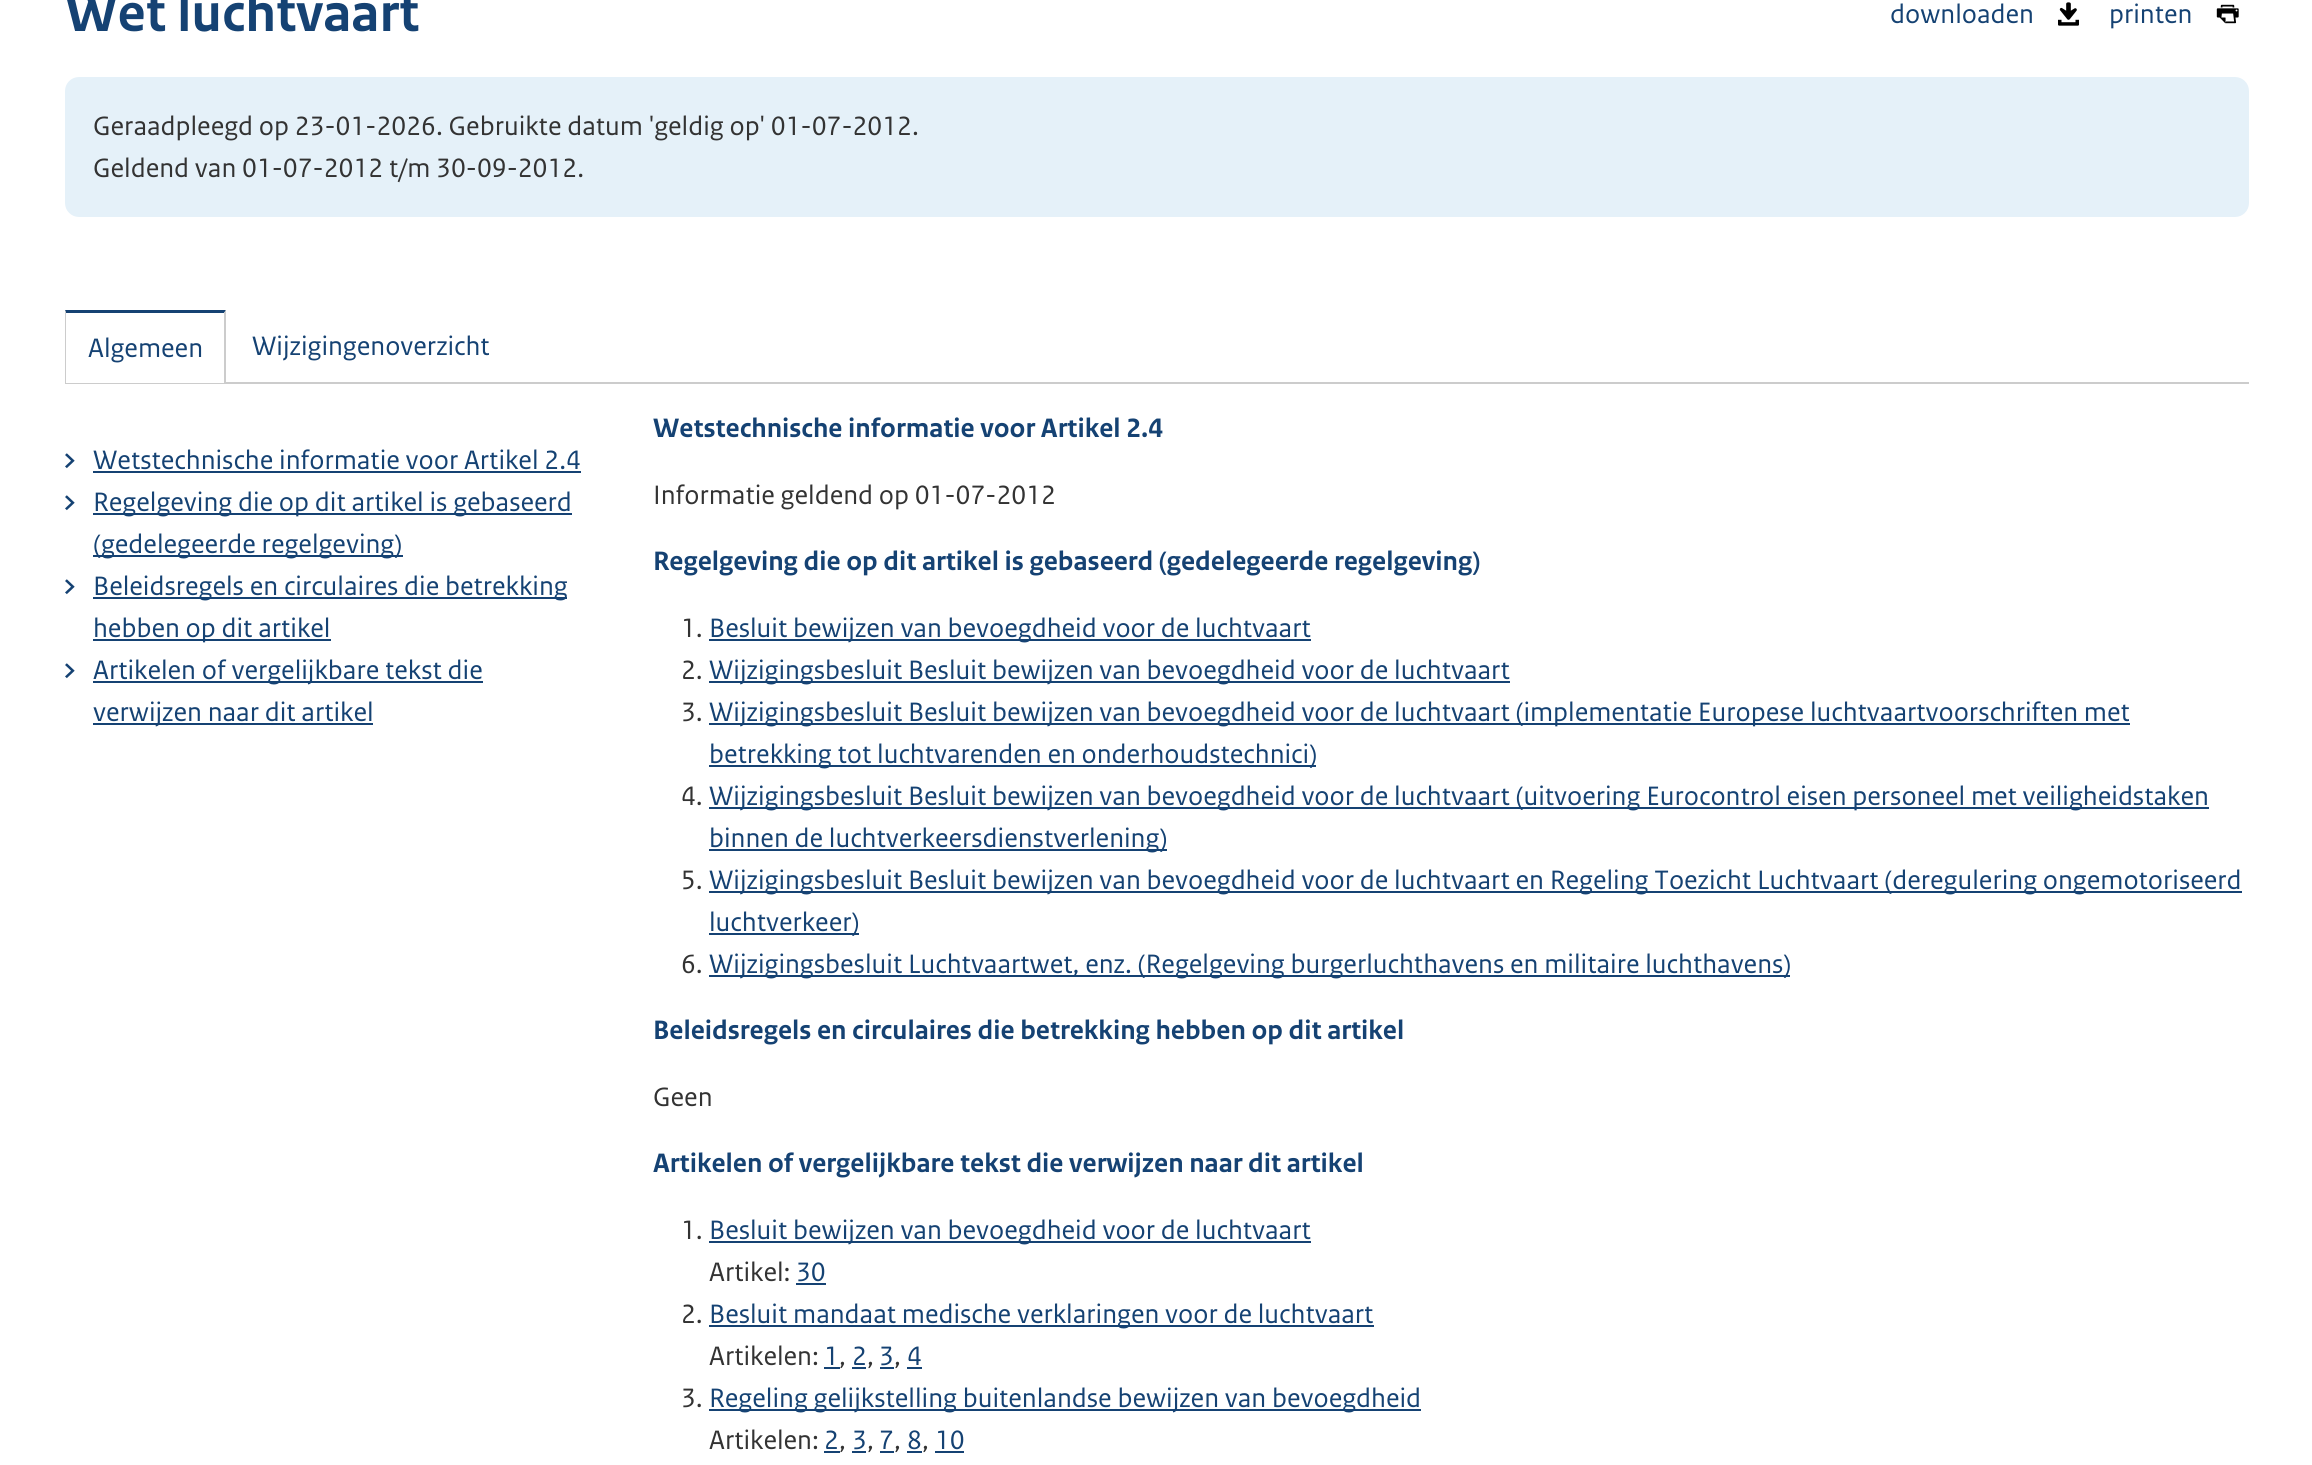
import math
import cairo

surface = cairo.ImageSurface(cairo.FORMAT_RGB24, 2312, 1465)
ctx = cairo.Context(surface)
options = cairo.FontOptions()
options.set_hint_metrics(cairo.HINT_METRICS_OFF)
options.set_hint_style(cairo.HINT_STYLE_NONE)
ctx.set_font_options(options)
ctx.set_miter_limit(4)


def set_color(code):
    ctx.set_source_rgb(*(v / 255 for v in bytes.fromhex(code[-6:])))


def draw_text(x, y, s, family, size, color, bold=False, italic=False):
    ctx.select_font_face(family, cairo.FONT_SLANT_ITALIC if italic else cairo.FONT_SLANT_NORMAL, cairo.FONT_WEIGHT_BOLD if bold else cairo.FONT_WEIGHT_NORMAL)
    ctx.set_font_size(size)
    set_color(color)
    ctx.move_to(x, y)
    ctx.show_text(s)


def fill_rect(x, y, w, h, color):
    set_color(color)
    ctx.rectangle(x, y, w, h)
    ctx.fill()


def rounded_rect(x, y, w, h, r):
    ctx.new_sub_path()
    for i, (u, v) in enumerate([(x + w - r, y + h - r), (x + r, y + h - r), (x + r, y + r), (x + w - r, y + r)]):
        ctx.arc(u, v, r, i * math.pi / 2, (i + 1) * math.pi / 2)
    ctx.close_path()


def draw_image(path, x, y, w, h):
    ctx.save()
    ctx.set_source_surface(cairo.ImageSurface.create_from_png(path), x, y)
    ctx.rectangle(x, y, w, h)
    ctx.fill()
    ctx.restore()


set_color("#ffffff")
ctx.paint()
draw_text(65, 31, "Wet luchtvaart", "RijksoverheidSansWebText", 56, "#154273", bold=True)
draw_text(1890, 23, "downloaden", "RijksoverheidSansWebText", 28, "#154273")
draw_image("assets/img1.png", 2058, 2, 21, 24)
draw_text(2109, 23, "printen", "RijksoverheidSansWebText", 28, "#154273")
draw_image("assets/img2.png", 2216, 4, 23, 20)
set_color("#e5f1f9")
rounded_rect(65, 77, 2184, 140, 14)
ctx.fill()
draw_text(93, 135, "Geraadpleegd op 23-01-2026. Gebruikte datum 'geldig op' 01-07-2012.", "RijksoverheidSansWebText", 28, "#333333")
draw_text(93, 177, "Geldend van 01-07-2012 t/m 30-09-2012.", "RijksoverheidSansWebText", 28, "#333333")
fill_rect(65, 382, 2184, 2, "#cccccc")
fill_rect(65, 382, 161, 1, "#ffffff")
set_color("#154273")
ctx.new_path()
ctx.move_to(65, 310)
ctx.line_to(226, 310)
ctx.line_to(224, 313)
ctx.line_to(66, 313)
ctx.close_path()
ctx.fill()
set_color("#cccccc")
ctx.new_path()
ctx.move_to(226, 310)
ctx.line_to(226, 383)
ctx.line_to(224, 383)
ctx.line_to(224, 313)
ctx.close_path()
ctx.fill()
ctx.new_path()
ctx.move_to(65, 383)
ctx.line_to(65, 310)
ctx.line_to(66, 313)
ctx.line_to(66, 383)
ctx.close_path()
ctx.fill()
draw_text(88, 357, "Algemeen", "RijksoverheidSansWebText", 28, "#154273")
draw_text(252, 355, "Wijzigingenoverzicht", "RijksoverheidSansWebText", 28, "#154273")
draw_image("assets/img3.png", 65, 453, 10, 16)
draw_text(93, 469, "Wetstechnische informatie voor Artikel 2.4", "RijksoverheidSansWebText", 28, "#154273")
fill_rect(93, 471, 488, 2, "#154273")
draw_image("assets/img3.png", 65, 495, 10, 16)
fill_rect(93, 513, 479, 2, "#154273")
draw_text(93, 511, "Regelgeving die op dit artikel is gebaseerd", "RijksoverheidSansWebText", 28, "#154273")
fill_rect(93, 555, 310, 2, "#154273")
draw_text(93, 553, "(gedelegeerde regelgeving)", "RijksoverheidSansWebText", 28, "#154273")
draw_image("assets/img3.png", 65, 579, 10, 16)
fill_rect(93, 597, 474, 2, "#154273")
draw_text(93, 595, "Beleidsregels en circulaires die betrekking", "RijksoverheidSansWebText", 28, "#154273")
fill_rect(93, 639, 238, 2, "#154273")
draw_text(93, 637, "hebben op dit artikel", "RijksoverheidSansWebText", 28, "#154273")
draw_image("assets/img3.png", 65, 663, 10, 16)
fill_rect(93, 681, 390, 2, "#154273")
draw_text(93, 679, "Artikelen of vergelijkbare tekst die", "RijksoverheidSansWebText", 28, "#154273")
fill_rect(93, 723, 280, 2, "#154273")
draw_text(93, 721, "verwijzen naar dit artikel", "RijksoverheidSansWebText", 28, "#154273")
draw_text(653, 437, "Wetstechnische informatie voor Artikel 2.4", "RijksoverheidSansWebText", 28, "#154273", bold=True)
draw_text(653, 504, "Informatie geldend op 01-07-2012", "RijksoverheidSansWebText", 28, "#333333")
draw_text(653, 570, "Regelgeving die op dit artikel is gebaseerd (gedelegeerde regelgeving)", "RijksoverheidSansWebText", 28, "#154273", bold=True)
draw_text(681, 637, "1.", "RijksoverheidSansWebText", 28, "#333333")
fill_rect(709, 639, 602, 2, "#154273")
draw_text(709, 637, "Besluit bewijzen van bevoegdheid voor de luchtvaart", "RijksoverheidSansWebText", 28, "#154273")
draw_text(681, 679, "2.", "RijksoverheidSansWebText", 28, "#333333")
fill_rect(709, 681, 801, 2, "#154273")
draw_text(709, 679, "Wijzigingsbesluit Besluit bewijzen van bevoegdheid voor de luchtvaart", "RijksoverheidSansWebText", 28, "#154273")
draw_text(681, 721, "3.", "RijksoverheidSansWebText", 28, "#333333")
fill_rect(709, 723, 1421, 2, "#154273")
draw_text(709, 721, "Wijzigingsbesluit Besluit bewijzen van bevoegdheid voor de luchtvaart (implementatie Europese luchtvaartvoorschriften met", "RijksoverheidSansWebText", 28, "#154273")
fill_rect(709, 765, 607, 2, "#154273")
draw_text(709, 763, "betrekking tot luchtvarenden en onderhoudstechnici)", "RijksoverheidSansWebText", 28, "#154273")
draw_text(681, 805, "4.", "RijksoverheidSansWebText", 28, "#333333")
fill_rect(709, 807, 1500, 2, "#154273")
draw_text(709, 805, "Wijzigingsbesluit Besluit bewijzen van bevoegdheid voor de luchtvaart (uitvoering Eurocontrol eisen personeel met veiligheidstaken", "RijksoverheidSansWebText", 28, "#154273")
fill_rect(709, 849, 458, 2, "#154273")
draw_text(709, 847, "binnen de luchtverkeersdienstverlening)", "RijksoverheidSansWebText", 28, "#154273")
draw_text(681, 889, "5.", "RijksoverheidSansWebText", 28, "#333333")
fill_rect(709, 891, 1533, 2, "#154273")
draw_text(709, 889, "Wijzigingsbesluit Besluit bewijzen van bevoegdheid voor de luchtvaart en Regeling Toezicht Luchtvaart (deregulering ongemotoriseerd", "RijksoverheidSansWebText", 28, "#154273")
fill_rect(709, 933, 150, 2, "#154273")
draw_text(709, 931, "luchtverkeer)", "RijksoverheidSansWebText", 28, "#154273")
draw_text(681, 973, "6.", "RijksoverheidSansWebText", 28, "#333333")
fill_rect(709, 975, 1081, 2, "#154273")
draw_text(709, 973, "Wijzigingsbesluit Luchtvaartwet, enz. (Regelgeving burgerluchthavens en militaire luchthavens)", "RijksoverheidSansWebText", 28, "#154273")
draw_text(653, 1039, "Beleidsregels en circulaires die betrekking hebben op dit artikel", "RijksoverheidSansWebText", 28, "#154273", bold=True)
draw_text(653, 1106, "Geen", "RijksoverheidSansWebText", 28, "#333333")
draw_text(653, 1172, "Artikelen of vergelijkbare tekst die verwijzen naar dit artikel", "RijksoverheidSansWebText", 28, "#154273", bold=True)
draw_text(681, 1239, "1.", "RijksoverheidSansWebText", 28, "#333333")
fill_rect(709, 1241, 602, 2, "#154273")
draw_text(709, 1239, "Besluit bewijzen van bevoegdheid voor de luchtvaart", "RijksoverheidSansWebText", 28, "#154273")
draw_text(709, 1281, "Artikel:", "RijksoverheidSansWebText", 28, "#333333")
draw_text(796, 1281, "30", "RijksoverheidSansWebText", 28, "#154273")
fill_rect(796, 1283, 30, 2, "#154273")
draw_text(681, 1323, "2.", "RijksoverheidSansWebText", 28, "#333333")
fill_rect(709, 1325, 665, 2, "#154273")
draw_text(709, 1323, "Besluit mandaat medische verklaringen voor de luchtvaart", "RijksoverheidSansWebText", 28, "#154273")
draw_text(709, 1365, "Artikelen:", "RijksoverheidSansWebText", 28, "#333333")
draw_text(824, 1365, "1", "RijksoverheidSansWebText", 28, "#154273")
draw_text(839, 1365, ",", "RijksoverheidSansWebText", 28, "#333333")
fill_rect(824, 1367, 16, 2, "#154273")
draw_text(852, 1365, "2", "RijksoverheidSansWebText", 28, "#154273")
draw_text(867, 1365, ",", "RijksoverheidSansWebText", 28, "#333333")
fill_rect(852, 1367, 14, 2, "#154273")
draw_text(879, 1365, "3", "RijksoverheidSansWebText", 28, "#154273")
draw_text(894, 1365, ",", "RijksoverheidSansWebText", 28, "#333333")
fill_rect(880, 1367, 14, 2, "#154273")
fill_rect(907, 1367, 15, 2, "#154273")
draw_text(907, 1365, "4", "RijksoverheidSansWebText", 28, "#154273")
draw_text(681, 1407, "3.", "RijksoverheidSansWebText", 28, "#333333")
fill_rect(709, 1409, 712, 2, "#154273")
draw_text(709, 1407, "Regeling gelijkstelling buitenlandse bewijzen van bevoegdheid", "RijksoverheidSansWebText", 28, "#154273")
draw_text(709, 1449, "Artikelen:", "RijksoverheidSansWebText", 28, "#333333")
draw_text(824, 1449, "2", "RijksoverheidSansWebText", 28, "#154273")
draw_text(839, 1449, ",", "RijksoverheidSansWebText", 28, "#333333")
fill_rect(824, 1451, 16, 2, "#154273")
draw_text(852, 1449, "3", "RijksoverheidSansWebText", 28, "#154273")
draw_text(867, 1449, ",", "RijksoverheidSansWebText", 28, "#333333")
fill_rect(852, 1451, 14, 2, "#154273")
draw_text(879, 1449, "7", "RijksoverheidSansWebText", 28, "#154273")
draw_text(894, 1449, ",", "RijksoverheidSansWebText", 28, "#333333")
fill_rect(880, 1451, 14, 2, "#154273")
draw_text(907, 1449, "8", "RijksoverheidSansWebText", 28, "#154273")
draw_text(922, 1449, ",", "RijksoverheidSansWebText", 28, "#333333")
fill_rect(907, 1451, 15, 2, "#154273")
fill_rect(935, 1451, 29, 2, "#154273")
draw_text(935, 1449, "10", "RijksoverheidSansWebText", 28, "#154273")
surface.write_to_png("output.png")
